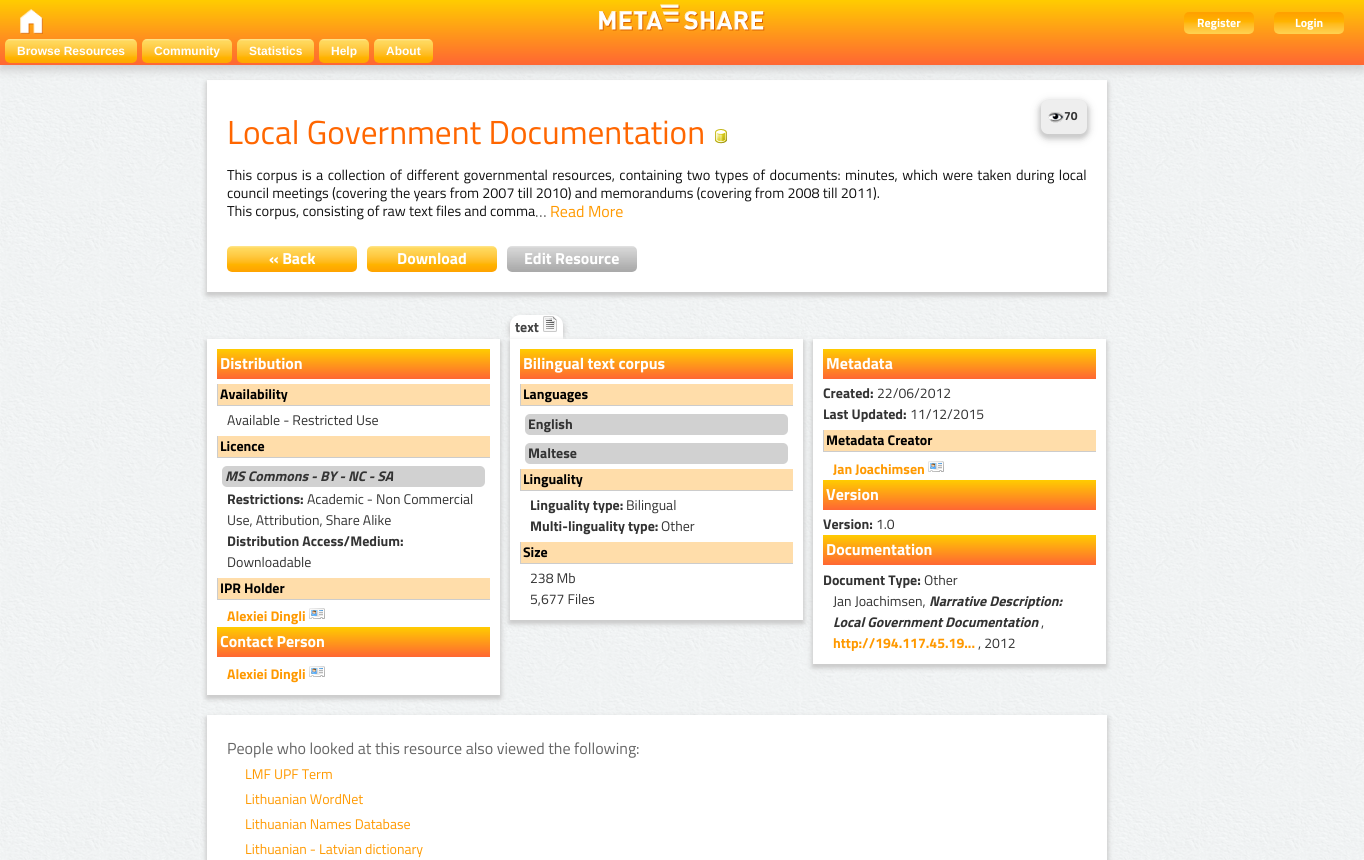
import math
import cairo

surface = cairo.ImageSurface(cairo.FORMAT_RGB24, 1364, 860)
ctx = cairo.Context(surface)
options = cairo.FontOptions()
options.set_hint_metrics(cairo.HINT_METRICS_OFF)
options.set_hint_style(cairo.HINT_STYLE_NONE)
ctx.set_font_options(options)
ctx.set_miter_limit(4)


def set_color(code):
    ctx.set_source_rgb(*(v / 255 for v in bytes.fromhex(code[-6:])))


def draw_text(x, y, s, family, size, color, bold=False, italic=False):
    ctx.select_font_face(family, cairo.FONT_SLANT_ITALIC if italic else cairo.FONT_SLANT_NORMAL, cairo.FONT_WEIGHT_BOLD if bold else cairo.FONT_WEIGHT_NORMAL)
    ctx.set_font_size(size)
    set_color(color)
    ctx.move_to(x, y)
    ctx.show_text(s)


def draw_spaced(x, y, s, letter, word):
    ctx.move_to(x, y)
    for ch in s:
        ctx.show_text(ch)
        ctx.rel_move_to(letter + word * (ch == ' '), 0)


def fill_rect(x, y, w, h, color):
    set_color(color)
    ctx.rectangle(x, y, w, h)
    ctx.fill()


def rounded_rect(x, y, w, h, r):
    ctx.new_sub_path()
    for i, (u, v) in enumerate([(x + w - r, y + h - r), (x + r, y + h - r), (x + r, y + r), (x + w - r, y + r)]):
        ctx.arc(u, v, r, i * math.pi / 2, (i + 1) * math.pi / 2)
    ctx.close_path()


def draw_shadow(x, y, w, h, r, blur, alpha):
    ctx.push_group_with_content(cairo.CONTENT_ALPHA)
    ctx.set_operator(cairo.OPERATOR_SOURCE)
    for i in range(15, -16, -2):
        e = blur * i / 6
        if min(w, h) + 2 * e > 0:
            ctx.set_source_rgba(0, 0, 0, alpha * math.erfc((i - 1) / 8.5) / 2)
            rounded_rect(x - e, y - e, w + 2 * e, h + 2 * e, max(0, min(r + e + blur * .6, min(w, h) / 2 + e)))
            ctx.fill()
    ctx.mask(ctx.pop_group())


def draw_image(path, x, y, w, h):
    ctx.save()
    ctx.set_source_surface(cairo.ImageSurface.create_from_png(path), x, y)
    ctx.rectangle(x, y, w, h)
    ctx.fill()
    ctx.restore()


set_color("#ffffff")
ctx.paint()
draw_image("assets/img1.png", 0, 65, 1364, 795)
set_color("#cccccc")
draw_shadow(206, 83, 900, 212, 0, 2.5, 1)
draw_shadow(208, 83, 900, 212, 0, 2.5, 1)
fill_rect(207, 80, 900, 212, "#ffffff")
set_color("#cccccc")
draw_shadow(0, 5, 1364, 65, 0, 5, 1)
gradient = cairo.LinearGradient(0, 0, 0, 65)
gradient.add_color_stop_rgba(0, 1, 0.8, 0, 1)
gradient.add_color_stop_rgba(1, 1, 0.4, 0.2, 1)
ctx.set_source(gradient)
ctx.rectangle(0, 0, 1364, 65)
ctx.fill()
draw_image("assets/img2.png", 20, 9, 23, 25)
draw_image("assets/img3.png", 599, 4, 166, 27)
draw_image("assets/img4.png", 1184, 12, 70, 22)
draw_text(1197, 27, "Register", "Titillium", 12, "#ffffff", bold=True)
draw_image("assets/img5.png", 1274, 12, 70, 22)
draw_text(1295, 27, "Login", "Titillium", 12, "#ffffff", bold=True)
draw_image("assets/img6.png", 5, 39, 132, 24)
draw_text(17, 55, "Browse Resources", "Liberation Sans", 12, "#ffffff", bold=True)
draw_image("assets/img7.png", 142, 39, 90, 24)
draw_text(154, 55, "Community", "Liberation Sans", 12, "#ffffff", bold=True)
draw_image("assets/img8.png", 237, 39, 77, 24)
draw_text(249, 55, "Statistics", "Liberation Sans", 12, "#ffffff", bold=True)
draw_image("assets/img9.png", 319, 39, 50, 24)
draw_text(331, 55, "Help", "Liberation Sans", 12, "#ffffff", bold=True)
draw_image("assets/img10.png", 374, 39, 59, 24)
draw_text(386, 55, "About", "Liberation Sans", 12, "#ffffff", bold=True)
set_color("#cccccc")
draw_shadow(1040, 103, 46, 34, 7, 2.5, 1)
draw_shadow(1042, 103, 46, 34, 7, 2.5, 1)
draw_shadow(1041, 103, 46, 34, 7, 5, 1)
set_color("#eeeeee")
rounded_rect(1041, 100, 46, 34, 7)
ctx.fill()
draw_image("assets/img11.png", 1048, 112, 16, 11)
draw_text(1064, 120, "70", "Titillium", 12, "#333333", bold=True)
draw_text(227, 144, "Local Government Documentation", "Titillium", 33.3, "#ff6600")
draw_image("assets/img12.png", 715, 129, 12, 15)
ctx.set_font_size(14.4)
set_color("#111111")
draw_spaced(227, 180, "This corpus is a collection of different governmental resources, containing two types of documents: minutes, which were taken during local", 0, 1.25)
draw_text(227, 198, "council meetings (covering the years from 2007 till 2010) and memorandums (covering from 2008 till 2011).", "Titillium", 14.4, "#111111")
draw_text(227, 216, "This corpus, consisting of raw text files and comma", "Titillium", 14.4, "#111111")
draw_text(535, 217, "…", "Titillium", 16, "#666666")
draw_text(550, 217, "Read More", "Titillium", 16, "#ff9900")
draw_image("assets/img13.png", 227, 246, 130, 26)
draw_text(269, 264, "« Back", "Titillium", 16, "#ffffff", bold=True)
draw_image("assets/img13.png", 367, 246, 130, 26)
draw_text(397, 264, "Download", "Titillium", 16, "#ffffff", bold=True)
draw_image("assets/img14.png", 507, 246, 130, 26)
draw_text(524, 264, "Edit Resource", "Titillium", 16, "#ffffff", bold=True)
set_color("#cccccc")
draw_shadow(206, 342, 293, 356, 0, 2.5, 1)
draw_shadow(208, 342, 293, 356, 0, 2.5, 1)
fill_rect(207, 339, 293, 356, "#ffffff")
gradient = cairo.LinearGradient(217, 349, 217, 379)
gradient.add_color_stop_rgba(0, 1, 0.8, 0, 1)
gradient.add_color_stop_rgba(1, 1, 0.4, 0.2, 1)
ctx.set_source(gradient)
ctx.rectangle(217, 349, 273, 30)
ctx.fill()
draw_text(220, 369, "Distribution", "Titillium", 16, "#ffffff", bold=True)
fill_rect(218, 384, 272, 21, "#ffddaa")
fill_rect(217, 405, 273, 1, "#cccccc")
fill_rect(217, 384, 1, 22, "#cccccc")
draw_text(220, 399, "Availability", "Titillium", 14, "#000000", bold=True)
draw_text(227, 425, "Available - Restricted Use", "Titillium", 14, "#333333")
fill_rect(218, 436, 272, 21, "#ffddaa")
fill_rect(217, 457, 273, 1, "#cccccc")
fill_rect(217, 436, 1, 22, "#cccccc")
draw_text(220, 451, "Licence", "Titillium", 14, "#000000", bold=True)
set_color("#d1d1d1")
rounded_rect(222, 466, 263, 21, 5)
ctx.fill()
draw_text(225, 481, "MS Commons - BY - NC - SA", "Titillium", 14, "#333333", bold=True, italic=True)
draw_text(227, 504, "Restrictions:", "Titillium", 14, "#333333", bold=True)
draw_text(307, 504, "Academic - Non Commercial", "Titillium", 14, "#333333")
draw_text(227, 525, "Use, Attribution, Share Alike", "Titillium", 14, "#333333")
draw_text(227, 546, "Distribution Access/Medium:", "Titillium", 14, "#333333", bold=True)
draw_text(227, 567, "Downloadable", "Titillium", 14, "#333333")
fill_rect(218, 578, 272, 21, "#ffddaa")
fill_rect(217, 599, 273, 1, "#cccccc")
fill_rect(217, 578, 1, 22, "#cccccc")
draw_text(220, 593, "IPR Holder", "Titillium", 14, "#000000", bold=True)
draw_text(227, 621, "Alexiei Dingli", "Titillium", 14, "#ff9900", bold=True)
draw_image("assets/img15.png", 309, 608, 16, 11)
gradient = cairo.LinearGradient(217, 627, 217, 657)
gradient.add_color_stop_rgba(0, 1, 0.8, 0, 1)
gradient.add_color_stop_rgba(1, 1, 0.4, 0.2, 1)
ctx.set_source(gradient)
ctx.rectangle(217, 627, 273, 30)
ctx.fill()
draw_text(220, 647, "Contact Person", "Titillium", 16, "#ffffff", bold=True)
draw_text(227, 679, "Alexiei Dingli", "Titillium", 14, "#ff9900", bold=True)
draw_image("assets/img15.png", 309, 666, 16, 11)
set_color("#cccccc")
draw_shadow(509, 318, 53, 24, 10, 2.5, 1)
draw_shadow(511, 318, 53, 24, 10, 2.5, 1)
set_color("#ffffff")
ctx.new_path()
ctx.move_to(520, 315)
ctx.line_to(553, 315)
ctx.curve_to(558.5, 315, 563, 319.5, 563, 325)
ctx.line_to(563, 339)
ctx.line_to(510, 339)
ctx.line_to(510, 325)
ctx.curve_to(510, 319.5, 514.5, 315, 520, 315)
ctx.close_path()
ctx.fill()
draw_text(515, 332, "text", "Titillium", 14, "#444444", bold=True)
draw_image("assets/img16.png", 543, 316, 14, 16)
set_color("#cccccc")
draw_shadow(509, 342, 293, 281, 0, 2.5, 1)
draw_shadow(511, 342, 293, 281, 0, 2.5, 1)
fill_rect(510, 339, 293, 281, "#ffffff")
gradient = cairo.LinearGradient(520, 349, 520, 379)
gradient.add_color_stop_rgba(0, 1, 0.8, 0, 1)
gradient.add_color_stop_rgba(1, 1, 0.4, 0.2, 1)
ctx.set_source(gradient)
ctx.rectangle(520, 349, 273, 30)
ctx.fill()
draw_text(523, 369, "Bilingual text corpus", "Titillium", 16, "#ffffff", bold=True)
fill_rect(521, 384, 272, 21, "#ffddaa")
fill_rect(520, 405, 273, 1, "#cccccc")
fill_rect(520, 384, 1, 22, "#cccccc")
draw_text(523, 399, "Languages", "Titillium", 14, "#000000", bold=True)
set_color("#d1d1d1")
rounded_rect(525, 414, 263, 21, 5)
ctx.fill()
draw_text(528, 429, "English", "Titillium", 14, "#333333", bold=True)
set_color("#d1d1d1")
rounded_rect(525, 443, 263, 21, 5)
ctx.fill()
draw_text(528, 458, "Maltese", "Titillium", 14, "#333333", bold=True)
fill_rect(521, 469, 272, 21, "#ffddaa")
fill_rect(520, 490, 273, 1, "#cccccc")
fill_rect(520, 469, 1, 22, "#cccccc")
draw_text(523, 484, "Linguality", "Titillium", 14, "#000000", bold=True)
draw_text(530, 510, "Linguality type:", "Titillium", 14, "#333333", bold=True)
draw_text(626, 510, "Bilingual", "Titillium", 14, "#333333")
draw_text(530, 531, "Multi-linguality type:", "Titillium", 14, "#333333", bold=True)
draw_text(661, 531, "Other", "Titillium", 14, "#333333")
fill_rect(521, 542, 272, 21, "#ffddaa")
fill_rect(520, 563, 273, 1, "#cccccc")
fill_rect(520, 542, 1, 22, "#cccccc")
draw_text(523, 557, "Size", "Titillium", 14, "#000000", bold=True)
draw_text(530, 583, "238 Mb", "Titillium", 14, "#333333")
draw_text(530, 604, "5,677 Files", "Titillium", 14, "#333333")
set_color("#cccccc")
draw_shadow(812, 342, 293, 325, 0, 2.5, 1)
draw_shadow(814, 342, 293, 325, 0, 2.5, 1)
fill_rect(813, 339, 293, 325, "#ffffff")
gradient = cairo.LinearGradient(823, 349, 823, 379)
gradient.add_color_stop_rgba(0, 1, 0.8, 0, 1)
gradient.add_color_stop_rgba(1, 1, 0.4, 0.2, 1)
ctx.set_source(gradient)
ctx.rectangle(823, 349, 273, 30)
ctx.fill()
draw_text(826, 369, "Metadata", "Titillium", 16, "#ffffff", bold=True)
draw_text(823, 398, "Created:", "Titillium", 14, "#333333", bold=True)
draw_text(877, 398, "22/06/2012", "Titillium", 14, "#333333")
draw_text(823, 419, "Last Updated:", "Titillium", 14, "#333333", bold=True)
draw_text(910, 419, "11/12/2015", "Titillium", 14, "#333333")
fill_rect(824, 430, 272, 21, "#ffddaa")
fill_rect(823, 451, 273, 1, "#cccccc")
fill_rect(823, 430, 1, 22, "#cccccc")
draw_text(826, 445, "Metadata Creator", "Titillium", 14, "#000000", bold=True)
draw_text(833, 474, "Jan Joachimsen", "Titillium", 14, "#ff9900", bold=True)
draw_image("assets/img15.png", 928, 461, 16, 11)
gradient = cairo.LinearGradient(823, 480, 823, 510)
gradient.add_color_stop_rgba(0, 1, 0.8, 0, 1)
gradient.add_color_stop_rgba(1, 1, 0.4, 0.2, 1)
ctx.set_source(gradient)
ctx.rectangle(823, 480, 273, 30)
ctx.fill()
draw_text(826, 500, "Version", "Titillium", 16, "#ffffff", bold=True)
draw_text(823, 529, "Version:", "Titillium", 14, "#333333", bold=True)
draw_text(876, 529, "1.0", "Titillium", 14, "#333333")
gradient = cairo.LinearGradient(823, 535, 823, 565)
gradient.add_color_stop_rgba(0, 1, 0.8, 0, 1)
gradient.add_color_stop_rgba(1, 1, 0.4, 0.2, 1)
ctx.set_source(gradient)
ctx.rectangle(823, 535, 273, 30)
ctx.fill()
draw_text(826, 555, "Documentation", "Titillium", 16, "#ffffff", bold=True)
draw_text(823, 585, "Document Type:", "Titillium", 14, "#333333", bold=True)
draw_text(924, 585, "Other", "Titillium", 14, "#333333")
draw_text(833, 606, "Jan Joachimsen,", "Titillium", 14, "#333333")
draw_text(929, 606, "Narrative Description:", "Titillium", 14, "#333333", bold=True, italic=True)
draw_text(833, 627, "Local Government Documentation", "Titillium", 14, "#333333", bold=True, italic=True)
draw_text(1041, 627, ",", "Titillium", 14, "#333333")
draw_text(833, 648, "http://194.117.45.19...", "Titillium", 14, "#ff9900", bold=True)
draw_text(978, 648, ", 2012", "Titillium", 14, "#333333")
set_color("#cccccc")
draw_shadow(206, 718, 900, 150, 0, 2.5, 1)
draw_shadow(208, 718, 900, 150, 0, 2.5, 1)
fill_rect(207, 715, 900, 145, "#ffffff")
draw_text(227, 754, "People who looked at this resource also viewed the following:", "Titillium", 16, "#666666")
draw_text(245, 779, "LMF UPF Term", "Titillium", 14, "#ff9900")
draw_text(245, 804, "Lithuanian WordNet", "Titillium", 14, "#ff9900")
draw_text(245, 829, "Lithuanian Names Database", "Titillium", 14, "#ff9900")
draw_text(245, 854, "Lithuanian - Latvian dictionary", "Titillium", 14, "#ff9900")
surface.write_to_png("output.png")
